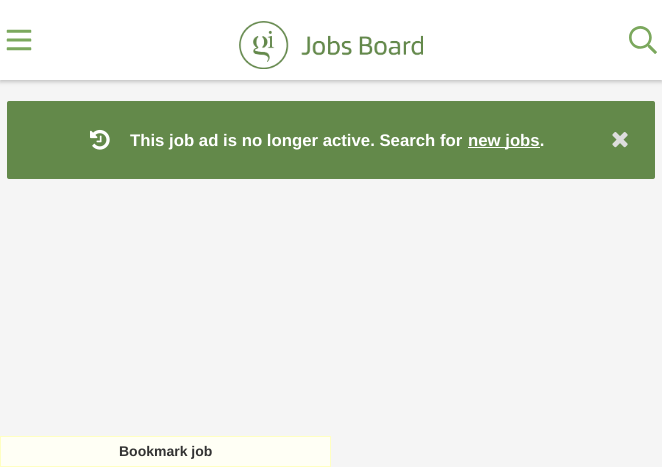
import math
import cairo

surface = cairo.ImageSurface(cairo.FORMAT_RGB24, 662, 467)
ctx = cairo.Context(surface)
options = cairo.FontOptions()
options.set_hint_metrics(cairo.HINT_METRICS_OFF)
options.set_hint_style(cairo.HINT_STYLE_NONE)
ctx.set_font_options(options)
ctx.set_miter_limit(4)


def set_color(code):
    ctx.set_source_rgb(*(v / 255 for v in bytes.fromhex(code[-6:])))


def draw_text(x, y, s, family, size, color, bold=False, italic=False):
    ctx.select_font_face(family, cairo.FONT_SLANT_ITALIC if italic else cairo.FONT_SLANT_NORMAL, cairo.FONT_WEIGHT_BOLD if bold else cairo.FONT_WEIGHT_NORMAL)
    ctx.set_font_size(size)
    set_color(color)
    ctx.move_to(x, y)
    ctx.show_text(s)


def fill_rect(x, y, w, h, color):
    set_color(color)
    ctx.rectangle(x, y, w, h)
    ctx.fill()


def rounded_rect(x, y, w, h, r):
    ctx.new_sub_path()
    for i, (u, v) in enumerate([(x + w - r, y + h - r), (x + r, y + h - r), (x + r, y + r), (x + w - r, y + r)]):
        ctx.arc(u, v, r, i * math.pi / 2, (i + 1) * math.pi / 2)
    ctx.close_path()


def draw_shadow(x, y, w, h, r, blur, alpha):
    ctx.push_group_with_content(cairo.CONTENT_ALPHA)
    ctx.set_operator(cairo.OPERATOR_SOURCE)
    for i in range(15, -16, -2):
        e = blur * i / 6
        if min(w, h) + 2 * e > 0:
            ctx.set_source_rgba(0, 0, 0, alpha * math.erfc((i - 1) / 8.5) / 2)
            rounded_rect(x - e, y - e, w + 2 * e, h + 2 * e, max(0, min(r + e + blur * .6, min(w, h) / 2 + e)))
            ctx.fill()
    ctx.mask(ctx.pop_group())


def draw_image(path, x, y, w, h):
    ctx.save()
    ctx.set_source_surface(cairo.ImageSurface.create_from_png(path), x, y)
    ctx.rectangle(x, y, w, h)
    ctx.fill()
    ctx.restore()


set_color("#f5f5f5")
ctx.paint()
set_color("#919191")
draw_shadow(0, 2, 662, 80, 0, 2, 0.5)
fill_rect(0, 0, 662, 80, "#ffffff")
draw_image("assets/img1.png", 6, 29, 26, 22)
draw_image("assets/img2.png", 239, 21, 184, 48)
draw_image("assets/img3.png", 629, 26, 28, 28)
set_color("#63894a")
rounded_rect(7, 101, 648, 78, 2)
ctx.fill()
draw_image("assets/img4.png", 90, 129, 20, 21)
draw_text(130, 146, "This job ad is no longer active. Search for", "Liberation Sans", 16.75, "#ffffff", bold=True)
fill_rect(468, 147, 72, 1, "#ffffff")
draw_text(468, 146, "new jobs.", "Liberation Sans", 16.75, "#ffffff", bold=True)
draw_image("assets/img5.png", 612, 132, 16, 16)
set_color("#fffff5")
ctx.rectangle(0.5, 436.5, 330, 30)
ctx.fill_preserve()
set_color("#ffffc2")
ctx.set_line_width(1)
ctx.stroke()
draw_text(119, 456, "Bookmark job", "Liberation Sans", 14, "#333333", bold=True)
surface.write_to_png("output.png")
